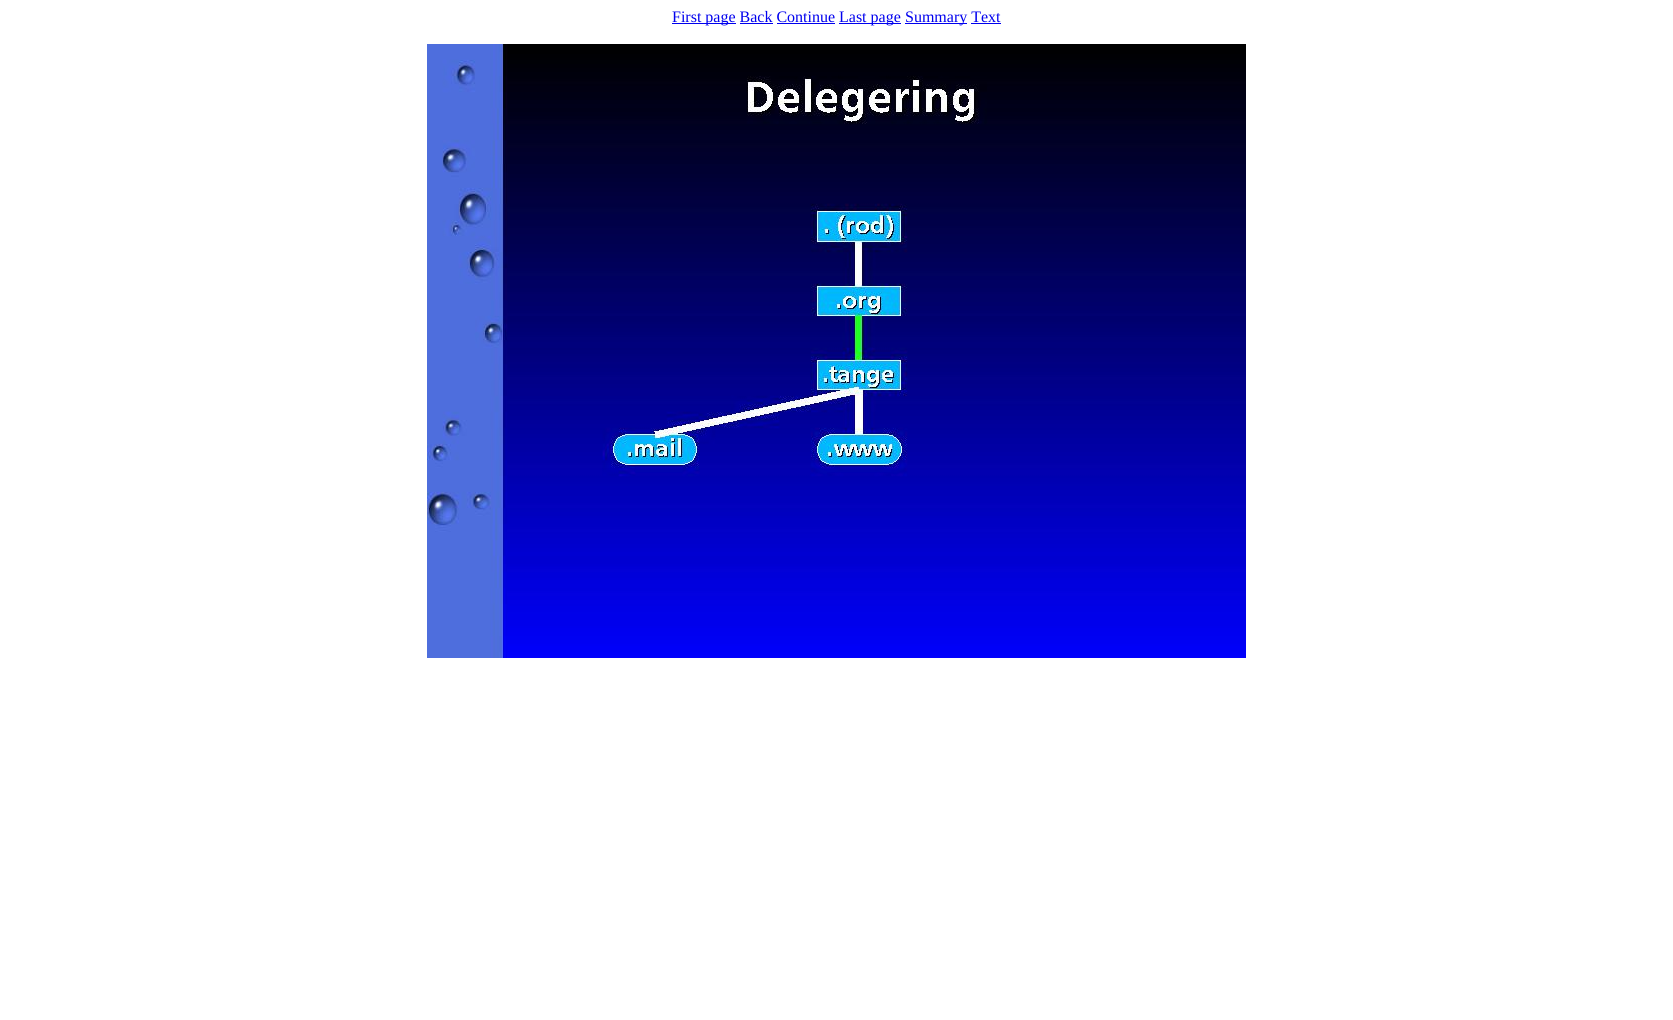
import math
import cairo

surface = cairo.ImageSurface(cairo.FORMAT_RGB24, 1673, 1020)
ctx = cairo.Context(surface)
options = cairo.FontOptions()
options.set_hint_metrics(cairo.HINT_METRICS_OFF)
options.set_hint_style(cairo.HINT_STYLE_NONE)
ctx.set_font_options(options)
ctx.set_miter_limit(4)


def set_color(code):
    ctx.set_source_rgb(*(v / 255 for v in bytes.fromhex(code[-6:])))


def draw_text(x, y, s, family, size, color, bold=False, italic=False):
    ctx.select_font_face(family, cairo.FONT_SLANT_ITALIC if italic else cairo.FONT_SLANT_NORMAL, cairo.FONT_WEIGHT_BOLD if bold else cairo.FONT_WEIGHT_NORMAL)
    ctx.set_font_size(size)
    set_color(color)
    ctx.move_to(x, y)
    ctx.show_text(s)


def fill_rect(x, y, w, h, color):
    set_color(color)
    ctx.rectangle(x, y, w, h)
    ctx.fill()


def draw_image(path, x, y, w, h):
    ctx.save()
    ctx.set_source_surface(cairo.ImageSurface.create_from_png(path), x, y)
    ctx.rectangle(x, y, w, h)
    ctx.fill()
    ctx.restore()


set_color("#ffffff")
ctx.paint()
fill_rect(672, 23, 64, 1, "#0000ee")
draw_text(672, 22, "First page Back Continue", "Liberation Serif", 16, "#0000ee")
fill_rect(839, 23, 62, 1, "#0000ee")
draw_text(839, 22, "Last page", "Liberation Serif", 16, "#0000ee")
fill_rect(905, 23, 62, 1, "#0000ee")
draw_text(905, 22, "Summary Text", "Liberation Serif", 16, "#0000ee")
fill_rect(740, 23, 33, 1, "#0000ee")
fill_rect(777, 23, 58, 1, "#0000ee")
fill_rect(971, 23, 30, 1, "#0000ee")
draw_image("assets/img1.png", 427, 44, 819, 614)
surface.write_to_png("output.png")
